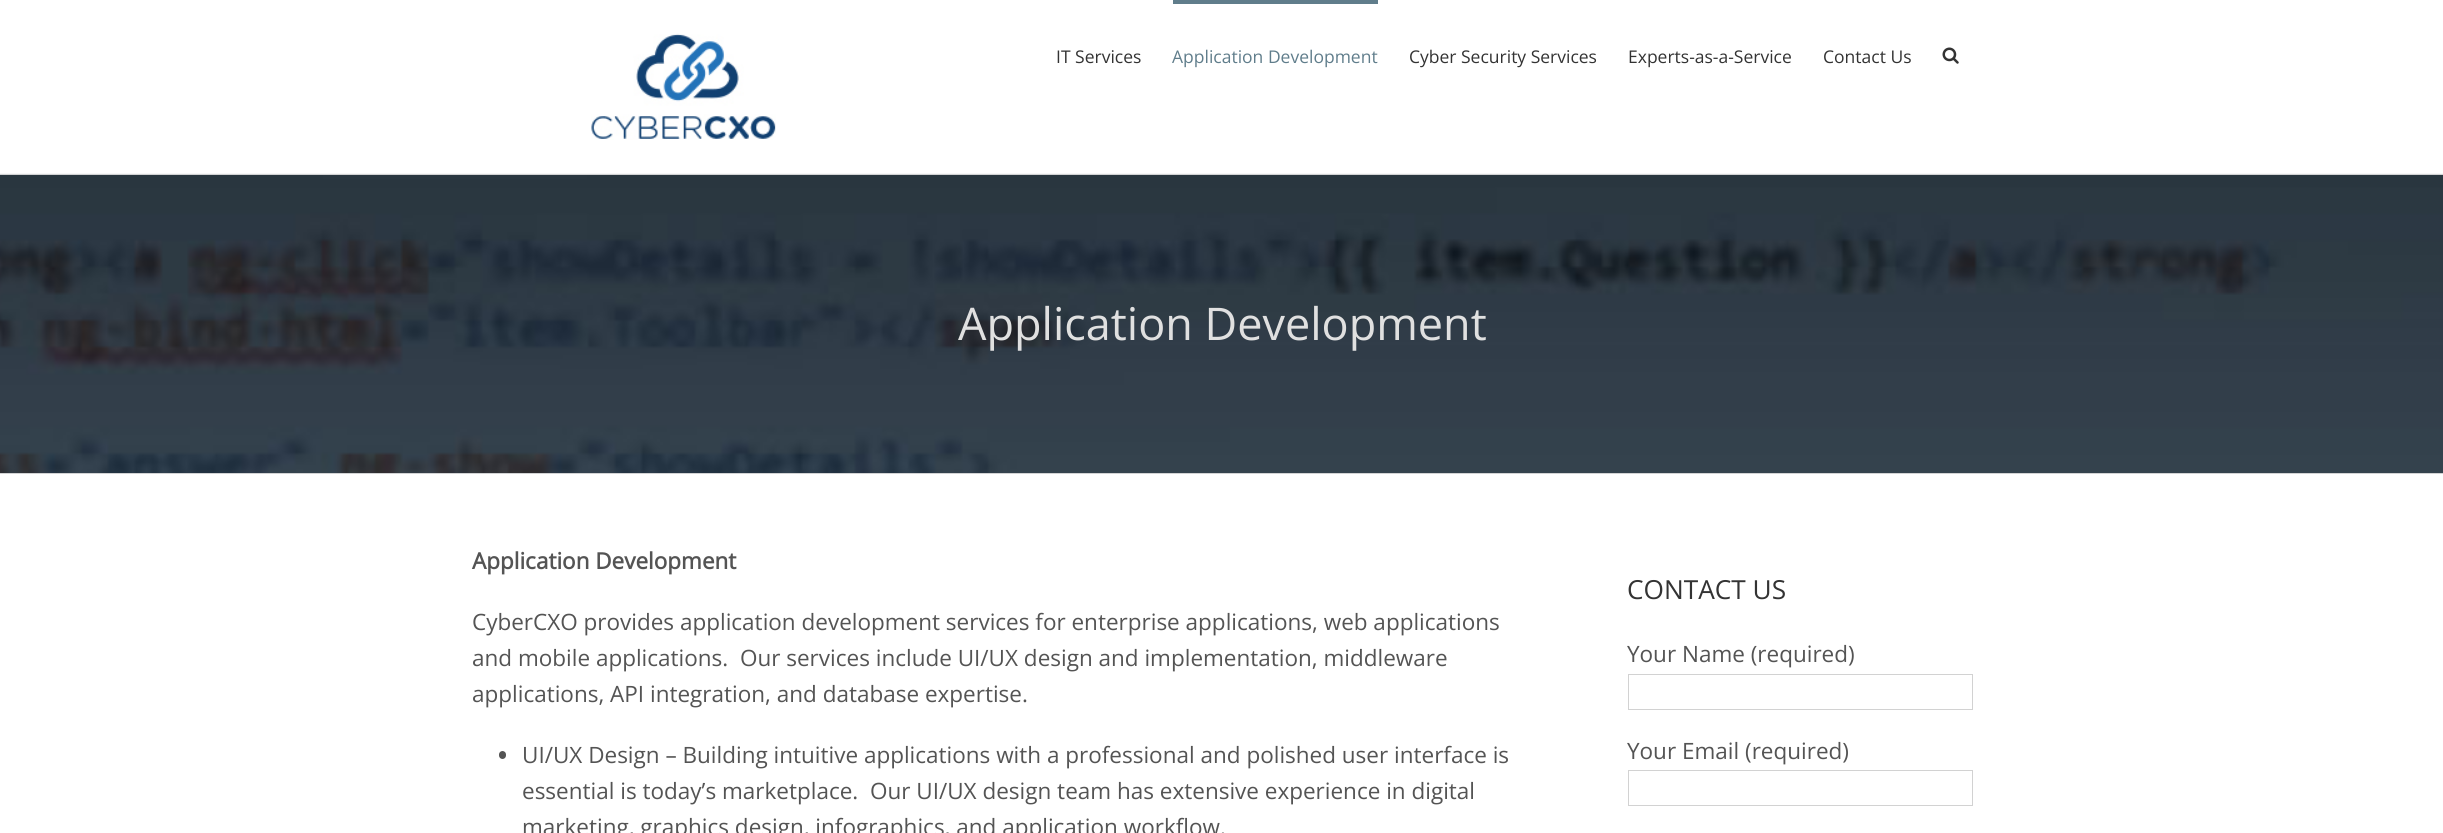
import math
import cairo

surface = cairo.ImageSurface(cairo.FORMAT_RGB24, 2443, 833)
ctx = cairo.Context(surface)
options = cairo.FontOptions()
options.set_hint_metrics(cairo.HINT_METRICS_OFF)
options.set_hint_style(cairo.HINT_STYLE_NONE)
ctx.set_font_options(options)
ctx.set_miter_limit(4)


def set_color(code):
    ctx.set_source_rgb(*(v / 255 for v in bytes.fromhex(code[-6:])))


def draw_text(x, y, s, family, size, color, bold=False, italic=False):
    ctx.select_font_face(family, cairo.FONT_SLANT_ITALIC if italic else cairo.FONT_SLANT_NORMAL, cairo.FONT_WEIGHT_BOLD if bold else cairo.FONT_WEIGHT_NORMAL)
    ctx.set_font_size(size)
    set_color(color)
    ctx.move_to(x, y)
    ctx.show_text(s)


def fill_rect(x, y, w, h, color):
    set_color(color)
    ctx.rectangle(x, y, w, h)
    ctx.fill()


def rounded_rect(x, y, w, h, r):
    ctx.new_sub_path()
    for i, (u, v) in enumerate([(x + w - r, y + h - r), (x + r, y + h - r), (x + r, y + r), (x + w - r, y + r)]):
        ctx.arc(u, v, r, i * math.pi / 2, (i + 1) * math.pi / 2)
    ctx.close_path()


def draw_image(path, x, y, w, h):
    ctx.save()
    ctx.set_source_surface(cairo.ImageSurface.create_from_png(path), x, y)
    ctx.rectangle(x, y, w, h)
    ctx.fill()
    ctx.restore()


set_color("#ffffff")
ctx.paint()
fill_rect(0, 173, 2443, 1, "#f7f7f7")
draw_image("assets/img1.png", 591, 33, 185, 107)
draw_text(1056, 63, "IT Services", "Open Sans", 17.5, "#333333")
fill_rect(1173, 0, 205, 4, "#607d8b")
draw_text(1172, 63, "Application Development", "Open Sans", 17.5, "#607d8b")
draw_text(1409, 63, "Cyber Security Services", "Open Sans", 17.5, "#333333")
draw_text(1628, 63, "Experts-as-a-Service", "Open Sans", 17.5, "#333333")
draw_text(1823, 63, "Contact Us", "Open Sans", 17.5, "#333333")
draw_image("assets/img2.png", 1942, 47, 17, 17)
draw_image("assets/img3.png", 0, 175, 2443, 298)
fill_rect(0, 174, 2443, 1, "#d2d3d4")
fill_rect(0, 473, 2443, 1, "#d2d3d4")
draw_text(958, 340, "Application Development", "Open Sans", 45, "#e0e0e0")
draw_text(472, 569, "Application Development", "Open Sans", 22.5, "#545454", bold=True)
draw_text(472, 630, "CyberCXO provides application development services for enterprise applications, web applications", "Open Sans", 22.5, "#545454")
draw_text(472, 666, "and mobile applications.  Our services include UI/UX design and implementation, middleware", "Open Sans", 22.5, "#545454")
draw_text(472, 702, "applications, API integration, and database expertise.", "Open Sans", 22.5, "#545454")
rounded_rect(499, 751, 7, 8, 3.5)
ctx.fill()
draw_text(522, 763, "UI/UX Design – Building intuitive applications with a professional and polished user interface is", "Open Sans", 22.5, "#545454")
draw_text(522, 799, "essential is today’s marketplace.  Our UI/UX design team has extensive experience in digital", "Open Sans", 22.5, "#545454")
draw_text(522, 835, "marketing, graphics design, infographics, and application workflow.", "Open Sans", 22.5, "#545454")
draw_text(1627, 599, "CONTACT US", "Open Sans", 26.25, "#333333")
draw_text(1627, 662, "Your Name (required)", "Open Sans", 22.5, "#545454")
ctx.rectangle(1628.5, 674.5, 344, 35)
set_color("#d2d2d2")
ctx.set_line_width(1)
ctx.stroke()
draw_text(1627, 759, "Your Email (required)", "Open Sans", 22.5, "#545454")
ctx.rectangle(1628.5, 770.5, 344, 35)
set_color("#d2d2d2")
ctx.stroke()
surface.write_to_png("output.png")
